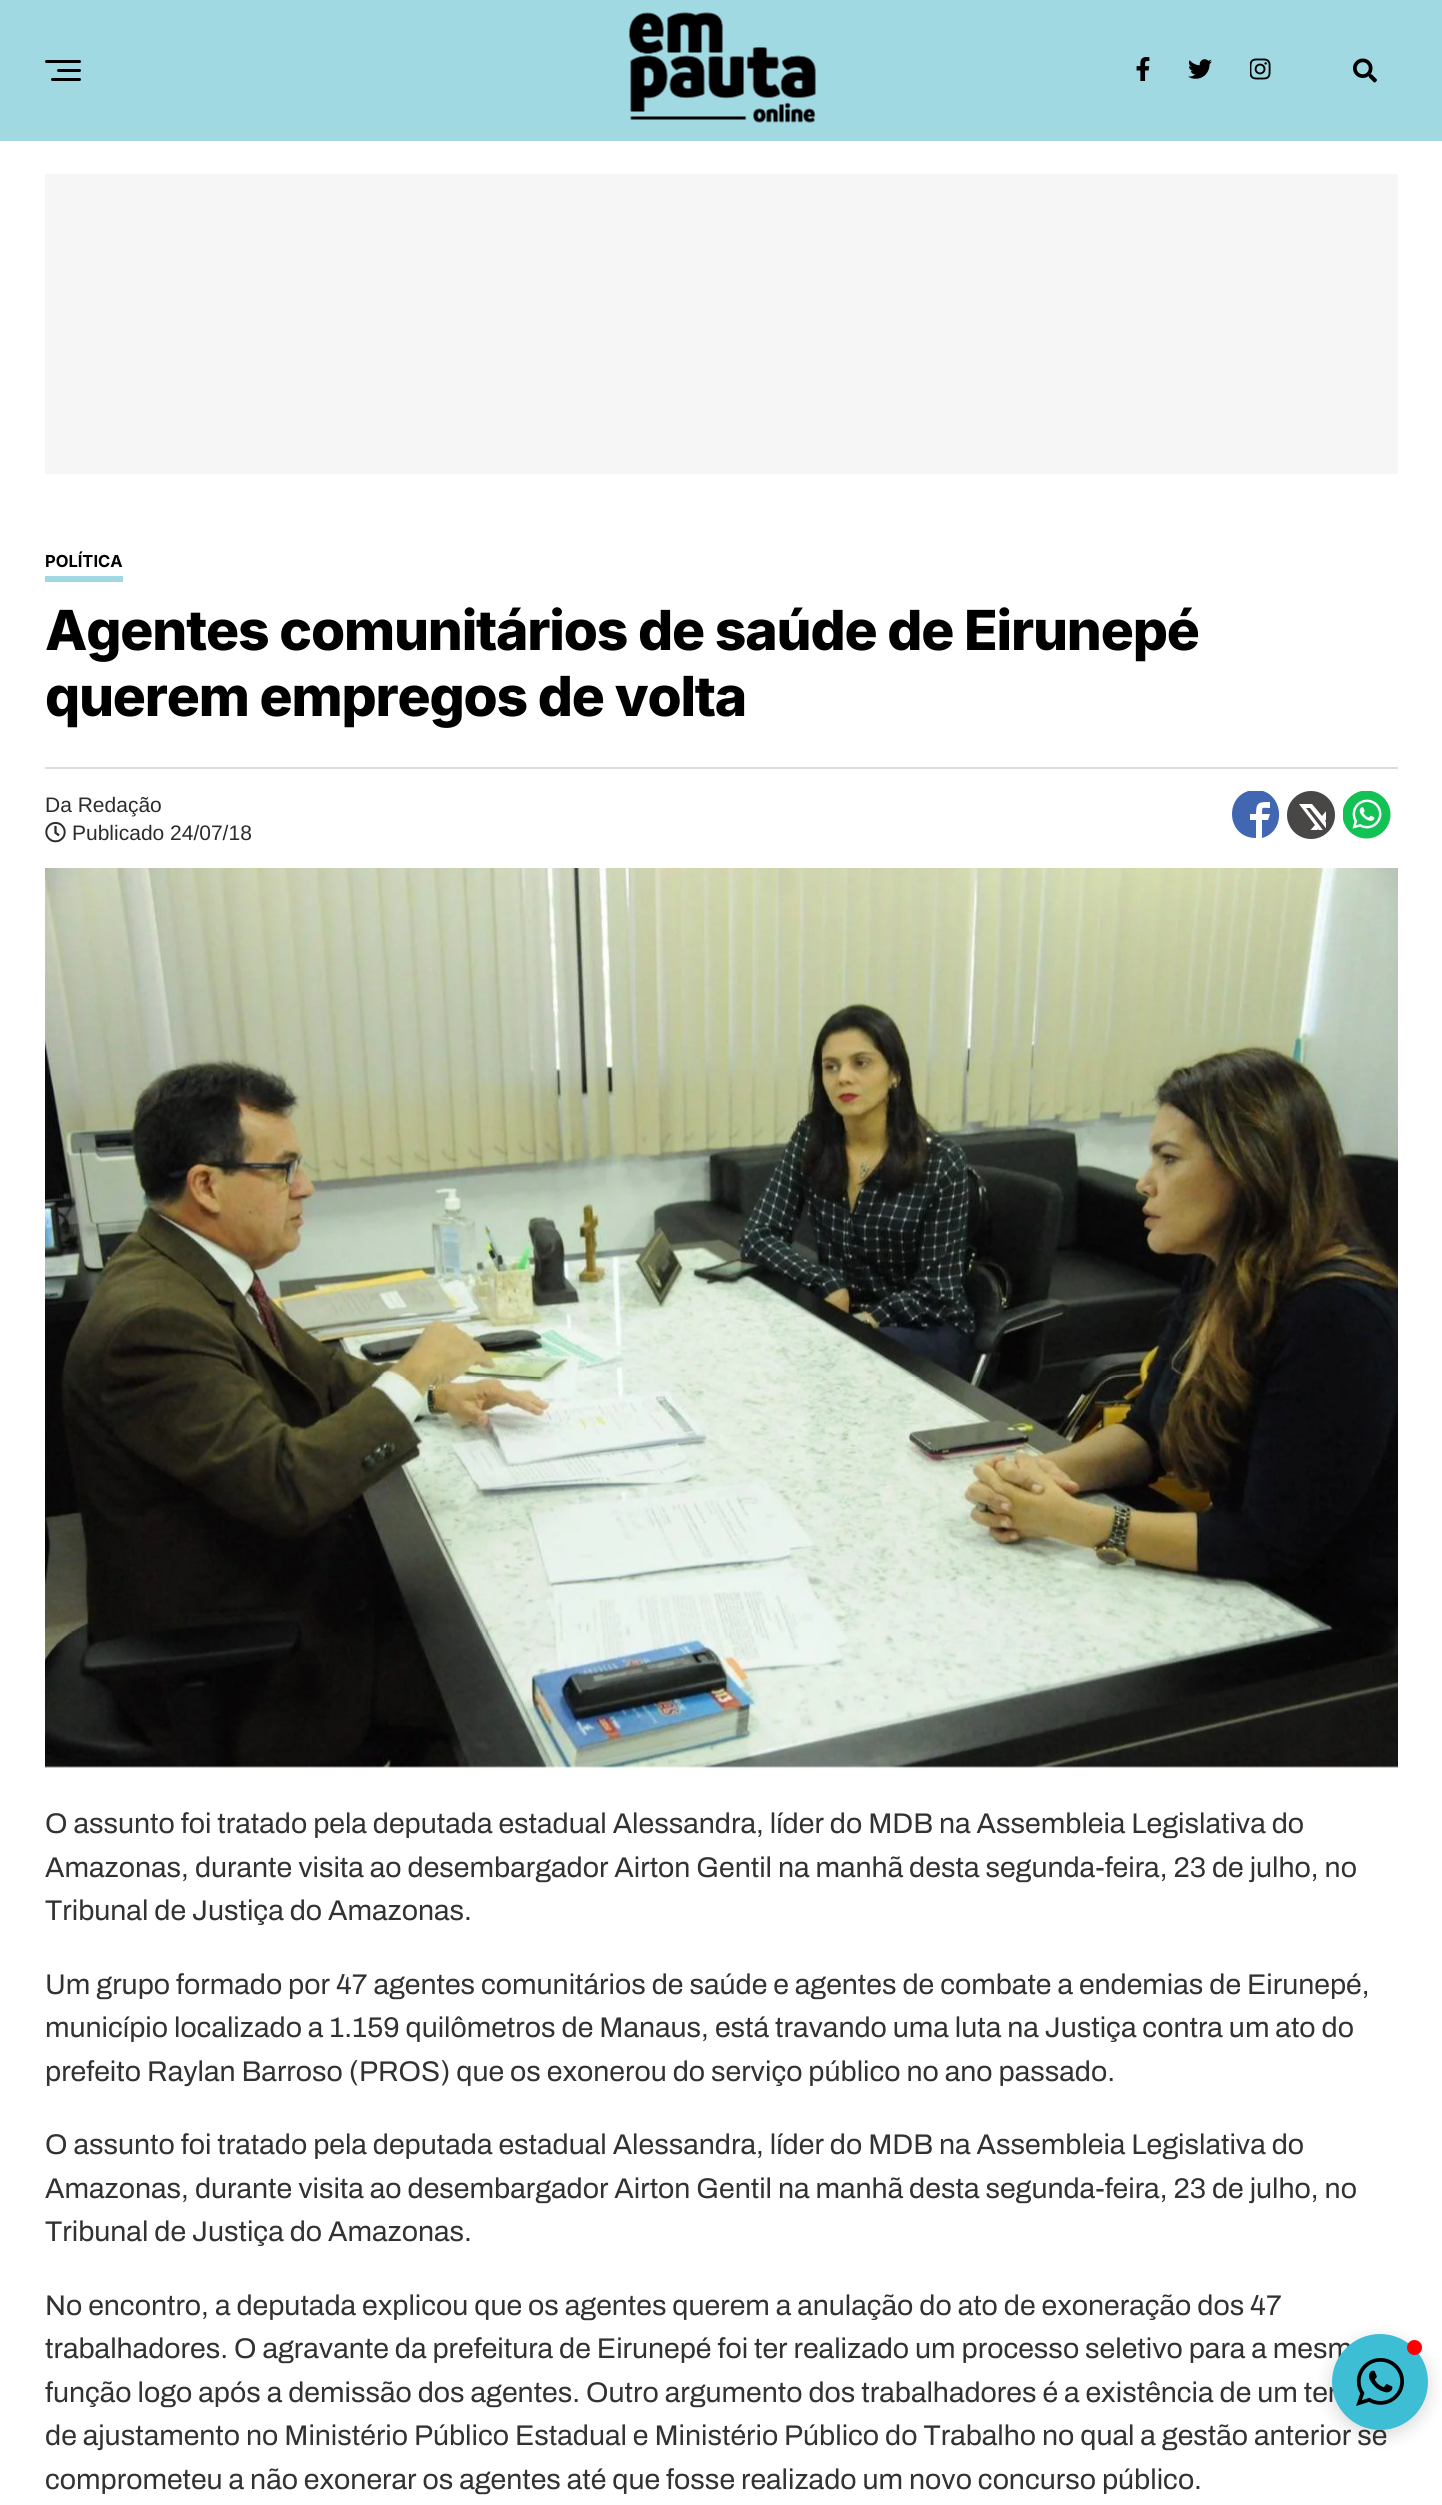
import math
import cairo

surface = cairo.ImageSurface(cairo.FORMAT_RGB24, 1442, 2505)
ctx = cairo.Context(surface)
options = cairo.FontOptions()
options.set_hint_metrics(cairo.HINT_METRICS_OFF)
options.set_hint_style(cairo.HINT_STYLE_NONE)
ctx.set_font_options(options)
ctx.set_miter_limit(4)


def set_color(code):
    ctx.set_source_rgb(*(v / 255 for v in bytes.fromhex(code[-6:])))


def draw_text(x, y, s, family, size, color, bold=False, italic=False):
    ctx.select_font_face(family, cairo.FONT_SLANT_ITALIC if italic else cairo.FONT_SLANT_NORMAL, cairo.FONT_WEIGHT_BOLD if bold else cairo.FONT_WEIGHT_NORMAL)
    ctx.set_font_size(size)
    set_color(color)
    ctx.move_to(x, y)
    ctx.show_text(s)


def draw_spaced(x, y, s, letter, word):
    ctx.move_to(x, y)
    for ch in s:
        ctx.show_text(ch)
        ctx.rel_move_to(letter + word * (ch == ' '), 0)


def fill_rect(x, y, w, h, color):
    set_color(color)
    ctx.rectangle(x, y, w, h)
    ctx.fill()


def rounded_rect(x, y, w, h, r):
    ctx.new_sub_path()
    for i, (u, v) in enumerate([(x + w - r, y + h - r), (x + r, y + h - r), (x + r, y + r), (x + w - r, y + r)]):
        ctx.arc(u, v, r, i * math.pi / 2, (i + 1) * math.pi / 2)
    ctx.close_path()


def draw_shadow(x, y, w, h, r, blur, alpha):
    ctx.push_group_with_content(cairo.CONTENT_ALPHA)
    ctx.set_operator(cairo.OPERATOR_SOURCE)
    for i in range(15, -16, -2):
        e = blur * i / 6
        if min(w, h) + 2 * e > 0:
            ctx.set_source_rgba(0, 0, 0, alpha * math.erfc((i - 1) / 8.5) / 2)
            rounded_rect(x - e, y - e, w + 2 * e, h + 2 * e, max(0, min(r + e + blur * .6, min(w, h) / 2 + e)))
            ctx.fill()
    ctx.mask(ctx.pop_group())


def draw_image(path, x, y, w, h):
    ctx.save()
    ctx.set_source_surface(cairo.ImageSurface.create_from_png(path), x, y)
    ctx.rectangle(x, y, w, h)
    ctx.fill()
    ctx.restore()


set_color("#ffffff")
ctx.paint()
fill_rect(0, 0, 1442, 141, "#a1d9e3")
set_color("#000000")
rounded_rect(45, 60, 36, 3, 1.5)
ctx.fill()
rounded_rect(57, 69, 24, 3, 1.5)
ctx.fill()
rounded_rect(51, 78, 30, 3, 1.5)
ctx.fill()
draw_image("assets/img1.png", 629, 12, 187, 111)
draw_image("assets/img2.png", 1136, 57, 14, 24)
draw_image("assets/img3.png", 1188, 59, 24, 20)
draw_image("assets/img4.png", 1250, 58, 21, 22)
draw_image("assets/img5.png", 1353, 58, 24, 25)
fill_rect(45, 174, 1353, 300, "#f6f6f6")
fill_rect(45, 576, 78, 6, "#a1d9e3")
draw_text(45, 567, "POLÍTICA", "Inter", 16.5, "#000000", bold=True)
ctx.select_font_face("Inter ExtraBold")
ctx.set_font_size(55.2)
draw_spaced(45, 650, "Agentes comunitários de saúde de Eirunepé", -1.2, 0)
draw_spaced(45, 716, "querem empregos de volta", -1.2, 0)
fill_rect(45, 767, 1353, 2, "#dddddd")
draw_text(45, 812, "Da Redação", "Liberation Sans", 21, "#2d2b2b")
draw_image("assets/img6.png", 45, 822, 21, 21)
draw_text(72, 840, "Publicado 24/07/18", "Liberation Sans", 21, "#2d2b2b")
ctx.save()
ctx.rectangle(1232, 791, 48, 48)
ctx.clip()
set_color("#4267b2")
ctx.new_path()
ctx.move_to(1256, 790)
ctx.curve_to(1224, 790, 1224, 838, 1256, 838)
ctx.line_to(1256, 820)
ctx.line_to(1250, 820)
ctx.line_to(1250, 814)
ctx.line_to(1256, 814)
ctx.curve_to(1256, 802, 1259, 802, 1270, 802)
ctx.line_to(1270, 808)
ctx.curve_to(1262, 808, 1262, 806, 1262, 814)
ctx.line_to(1270, 814)
ctx.line_to(1268, 820)
ctx.line_to(1262, 820)
ctx.line_to(1262, 838)
ctx.curve_to(1288, 831, 1283, 790, 1256, 790)
ctx.close_path()
ctx.fill()
ctx.restore()
set_color("#494646")
ctx.arc(1311, 815, 24, 0, 2 * math.pi)
ctx.fill()
ctx.save()
ctx.rectangle(1296, 800, 30, 30)
ctx.clip()
set_color("#ffffff")
ctx.new_path()
ctx.move_to(1332, 804)
ctx.line_to(1332.5, 804)
ctx.line_to(1334.5, 809.5)
ctx.line_to(1325, 821)
ctx.line_to(1331, 828.5)
ctx.line_to(1328.5, 831.5)
ctx.line_to(1310, 808)
ctx.line_to(1306, 808)
ctx.line_to(1326, 834)
ctx.line_to(1323, 836)
ctx.line_to(1318, 829)
ctx.line_to(1309.5, 839)
ctx.line_to(1303.5, 838)
ctx.line_to(1315, 825)
ctx.line_to(1299, 804)
ctx.line_to(1312, 804)
ctx.line_to(1322, 816)
ctx.close_path()
ctx.fill()
ctx.restore()
draw_image("assets/img7.png", 1343, 791, 48, 48)
draw_image("assets/img8.png", 45, 868, 1353, 900)
draw_text(45, 1833, "O assunto foi tratado pela deputada estadual Alessandra, líder do MDB na Assembleia Legislativa do", "Archivo", 28.5, "#333232")
draw_text(45, 1877, "Amazonas, durante visita ao desembargador Airton Gentil na manhã desta segunda-feira, 23 de julho, no", "Archivo", 28.5, "#333232")
draw_text(45, 1920, "Tribunal de Justiça do Amazonas.", "Archivo", 28.5, "#333232")
draw_text(45, 1994, "Um grupo formado por 47 agentes comunitários de saúde e agentes de combate a endemias de Eirunepé,", "Archivo", 28.5, "#333232")
draw_text(45, 2037, "município localizado a 1.159 quilômetros de Manaus, está travando uma luta na Justiça contra um ato do", "Archivo", 28.5, "#333232")
draw_text(45, 2081, "prefeito Raylan Barroso (PROS) que os exonerou do serviço público no ano passado.", "Archivo", 28.5, "#333232")
draw_text(45, 2154, "O assunto foi tratado pela deputada estadual Alessandra, líder do MDB na Assembleia Legislativa do", "Archivo", 28.5, "#333232")
draw_text(45, 2198, "Amazonas, durante visita ao desembargador Airton Gentil na manhã desta segunda-feira, 23 de julho, no", "Archivo", 28.5, "#333232")
draw_text(45, 2241, "Tribunal de Justiça do Amazonas.", "Archivo", 28.5, "#333232")
draw_text(45, 2315, "No encontro, a deputada explicou que os agentes querem a anulação do ato de exoneração dos 47", "Archivo", 28.5, "#333232")
draw_text(45, 2358, "trabalhadores. O agravante da prefeitura de Eirunepé foi ter realizado um processo seletivo para a mesm", "Archivo", 28.5, "#333232")
draw_text(45, 2402, "função logo após a demissão dos agentes. Outro argumento dos trabalhadores é a existência de um ter", "Archivo", 28.5, "#333232")
draw_text(45, 2445, "de ajustamento no Ministério Público Estadual e Ministério Público do Trabalho no qual a gestão anterior se", "Archivo", 28.5, "#333232")
draw_text(45, 2489, "comprometeu a não exonerar os agentes até que fosse realizado um novo concurso público.", "Archivo", 28.5, "#333232")
set_color("#000000")
draw_shadow(1332, 2339, 96, 96, 48, 9, 0.15)
set_color("#3ebed5")
ctx.arc(1380, 2382, 48, 0, 2 * math.pi)
ctx.fill()
set_color("#ff0000")
ctx.arc(1414.5, 2347.5, 7.5, 0, 2 * math.pi)
ctx.fill()
draw_image("assets/img9.png", 1356, 2358, 48, 48)
surface.write_to_png("output.png")
